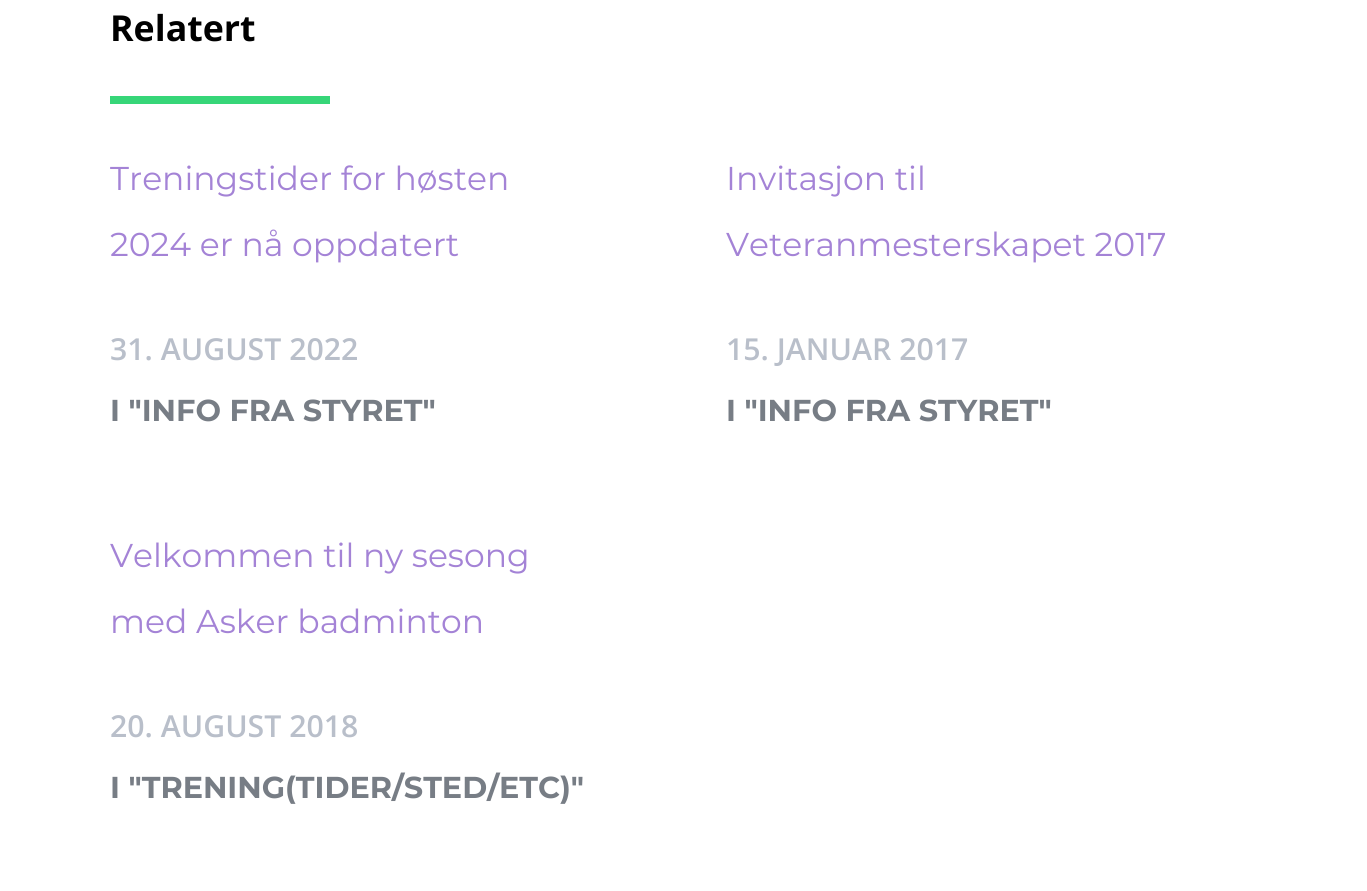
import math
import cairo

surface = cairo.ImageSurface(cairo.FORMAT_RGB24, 1367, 891)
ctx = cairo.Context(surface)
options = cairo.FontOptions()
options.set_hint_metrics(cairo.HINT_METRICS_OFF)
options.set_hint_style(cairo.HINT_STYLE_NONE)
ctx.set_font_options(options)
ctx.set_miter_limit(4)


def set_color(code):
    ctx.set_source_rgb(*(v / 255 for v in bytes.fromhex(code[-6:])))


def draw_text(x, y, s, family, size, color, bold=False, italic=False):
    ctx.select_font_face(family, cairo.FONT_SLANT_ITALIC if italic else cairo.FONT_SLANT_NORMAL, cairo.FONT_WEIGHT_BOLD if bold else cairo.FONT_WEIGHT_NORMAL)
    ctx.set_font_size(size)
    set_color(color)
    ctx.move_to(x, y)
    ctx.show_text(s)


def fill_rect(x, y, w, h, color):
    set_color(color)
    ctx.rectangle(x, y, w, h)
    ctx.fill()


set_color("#ffffff")
ctx.paint()
draw_text(110, 41, "Relatert", "Open Sans", 35.75, "#000000", bold=True)
fill_rect(110, 96, 220, 8, "#36d678")
draw_text(110, 190, "Treningstider for høsten", "Montserrat", 33, "#a483d6")
draw_text(110, 256, "2024 er nå oppdatert", "Montserrat", 33, "#a483d6")
draw_text(110, 360, "31. AUGUST 2022", "Open Sans SemiBold", 30.25, "#b9bfca")
draw_text(110, 421, "I \"INFO FRA STYRET\"", "Montserrat", 30.25, "#777d85", bold=True)
draw_text(726, 190, "Invitasjon til", "Montserrat", 33, "#a483d6")
draw_text(726, 256, "Veteranmesterskapet 2017", "Montserrat", 33, "#a483d6")
draw_text(726, 360, "15. JANUAR 2017", "Open Sans SemiBold", 30.25, "#b9bfca")
draw_text(726, 421, "I \"INFO FRA STYRET\"", "Montserrat", 30.25, "#777d85", bold=True)
draw_text(110, 567, "Velkommen til ny sesong", "Montserrat", 33, "#a483d6")
draw_text(110, 633, "med Asker badminton", "Montserrat", 33, "#a483d6")
draw_text(110, 737, "20. AUGUST 2018", "Open Sans SemiBold", 30.25, "#b9bfca")
draw_text(110, 798, "I \"TRENING(TIDER/STED/ETC)\"", "Montserrat", 30.25, "#777d85", bold=True)
surface.write_to_png("output.png")
